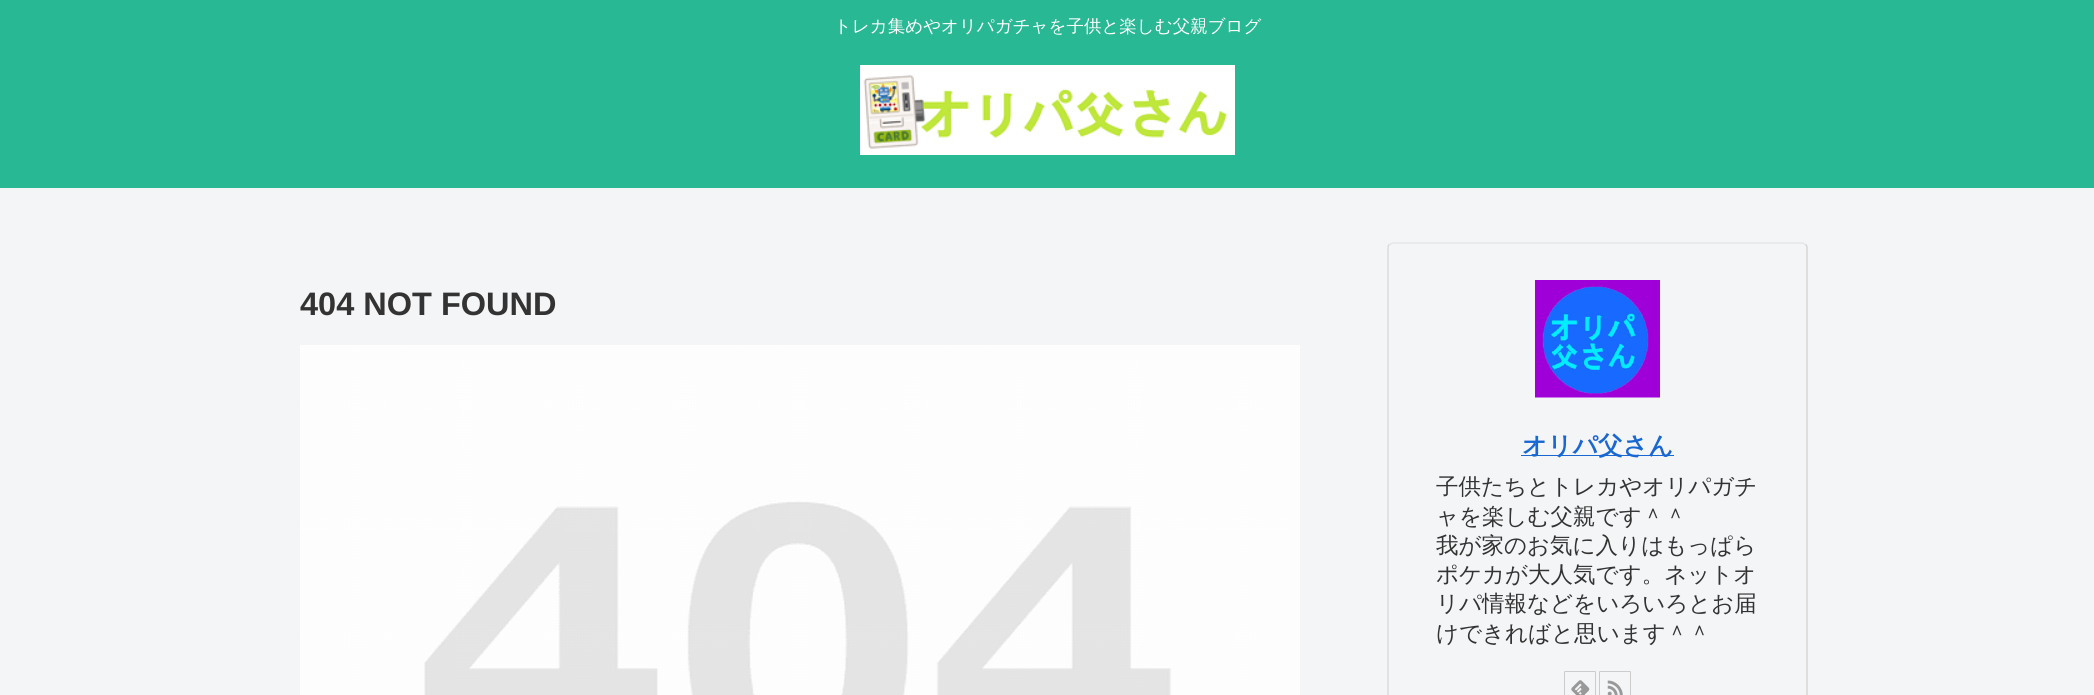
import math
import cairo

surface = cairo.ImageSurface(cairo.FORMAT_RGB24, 2094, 695)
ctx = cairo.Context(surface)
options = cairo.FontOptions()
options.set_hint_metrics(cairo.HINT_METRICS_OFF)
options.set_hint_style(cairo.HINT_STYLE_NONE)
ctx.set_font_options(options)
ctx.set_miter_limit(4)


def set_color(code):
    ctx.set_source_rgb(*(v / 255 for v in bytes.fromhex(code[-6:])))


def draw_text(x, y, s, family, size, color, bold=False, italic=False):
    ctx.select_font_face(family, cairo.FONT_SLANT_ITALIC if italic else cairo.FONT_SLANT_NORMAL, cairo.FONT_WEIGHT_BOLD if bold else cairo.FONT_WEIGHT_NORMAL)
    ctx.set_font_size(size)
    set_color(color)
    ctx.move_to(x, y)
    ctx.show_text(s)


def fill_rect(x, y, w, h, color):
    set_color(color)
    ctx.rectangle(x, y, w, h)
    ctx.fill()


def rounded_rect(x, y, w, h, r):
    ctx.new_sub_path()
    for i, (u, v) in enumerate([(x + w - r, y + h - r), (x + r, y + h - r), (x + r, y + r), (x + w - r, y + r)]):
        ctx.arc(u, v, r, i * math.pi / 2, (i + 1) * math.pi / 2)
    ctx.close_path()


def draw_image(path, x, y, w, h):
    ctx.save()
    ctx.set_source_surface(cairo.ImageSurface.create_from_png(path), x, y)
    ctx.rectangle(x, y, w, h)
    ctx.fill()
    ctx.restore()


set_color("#f4f5f7")
ctx.paint()
fill_rect(0, 0, 2094, 188, "#28b893")
draw_text(834, 32, "トレカ集めやオリパガチャを子供と楽しむ父親ブログ", "WenQuanYi Zen Hei Medium", 17.5, "#ffffff")
draw_image("assets/img1.png", 860, 65, 375, 90)
draw_text(300, 315, "404 NOT FOUND", "Liberation Sans", 32.5, "#333333", bold=True)
draw_image("assets/img2.png", 300, 345, 1000, 350)
ctx.new_path()
ctx.move_to(1389.5, 244.5)
ctx.line_to(1392.5, 243)
ctx.line_to(1802.5, 243)
ctx.line_to(1805.5, 244.5)
set_color("#e3e3e3")
ctx.set_line_width(1.2)
ctx.stroke()
ctx.new_path()
ctx.move_to(1805.5, 244.5)
ctx.curve_to(1806.5, 245, 1807, 246.5, 1807, 247.5)
ctx.line_to(1807, 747.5)
ctx.curve_to(1807, 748.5, 1806.5, 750, 1805.5, 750.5)
set_color("#cecece")
ctx.stroke()
ctx.new_path()
ctx.move_to(1389.5, 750.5)
ctx.curve_to(1388.5, 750, 1388, 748.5, 1388, 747.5)
ctx.line_to(1388, 247.5)
ctx.curve_to(1388, 246.5, 1388.5, 245, 1389.5, 244.5)
set_color("#d6d6d6")
ctx.stroke()
draw_image("assets/img3.png", 1535, 280, 125, 118)
fill_rect(1521, 455, 153, 1, "#1967d2")
draw_text(1522, 454, "オリパ父さん", "WenQuanYi Zen Hei", 24.75, "#1967d2", bold=True)
draw_text(1436, 494, "子供たちとトレカやオリパガチ", "WenQuanYi Zen Hei Medium", 22.5, "#333333")
draw_text(1436, 524, "ャを楽しむ父親です＾＾", "WenQuanYi Zen Hei Medium", 22.5, "#333333")
draw_text(1436, 553, "我が家のお気に入りはもっぱら", "WenQuanYi Zen Hei Medium", 22.5, "#333333")
draw_text(1436, 582, "ポケカが大人気です。ネットオ", "WenQuanYi Zen Hei Medium", 22.5, "#333333")
draw_text(1436, 611, "リパ情報などをいろいろとお届", "WenQuanYi Zen Hei Medium", 22.5, "#333333")
draw_text(1436, 641, "けできればと思います＾＾", "WenQuanYi Zen Hei Medium", 22.5, "#333333")
rounded_rect(1564.5, 671.5, 31, 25, 0.5)
set_color("#cccccc")
ctx.set_line_width(1)
ctx.stroke()
draw_image("assets/img4.png", 1571, 680, 19, 15)
rounded_rect(1599.5, 671.5, 31, 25, 0.5)
ctx.stroke()
draw_image("assets/img5.png", 1607, 680, 16, 15)
surface.write_to_png("output.png")
